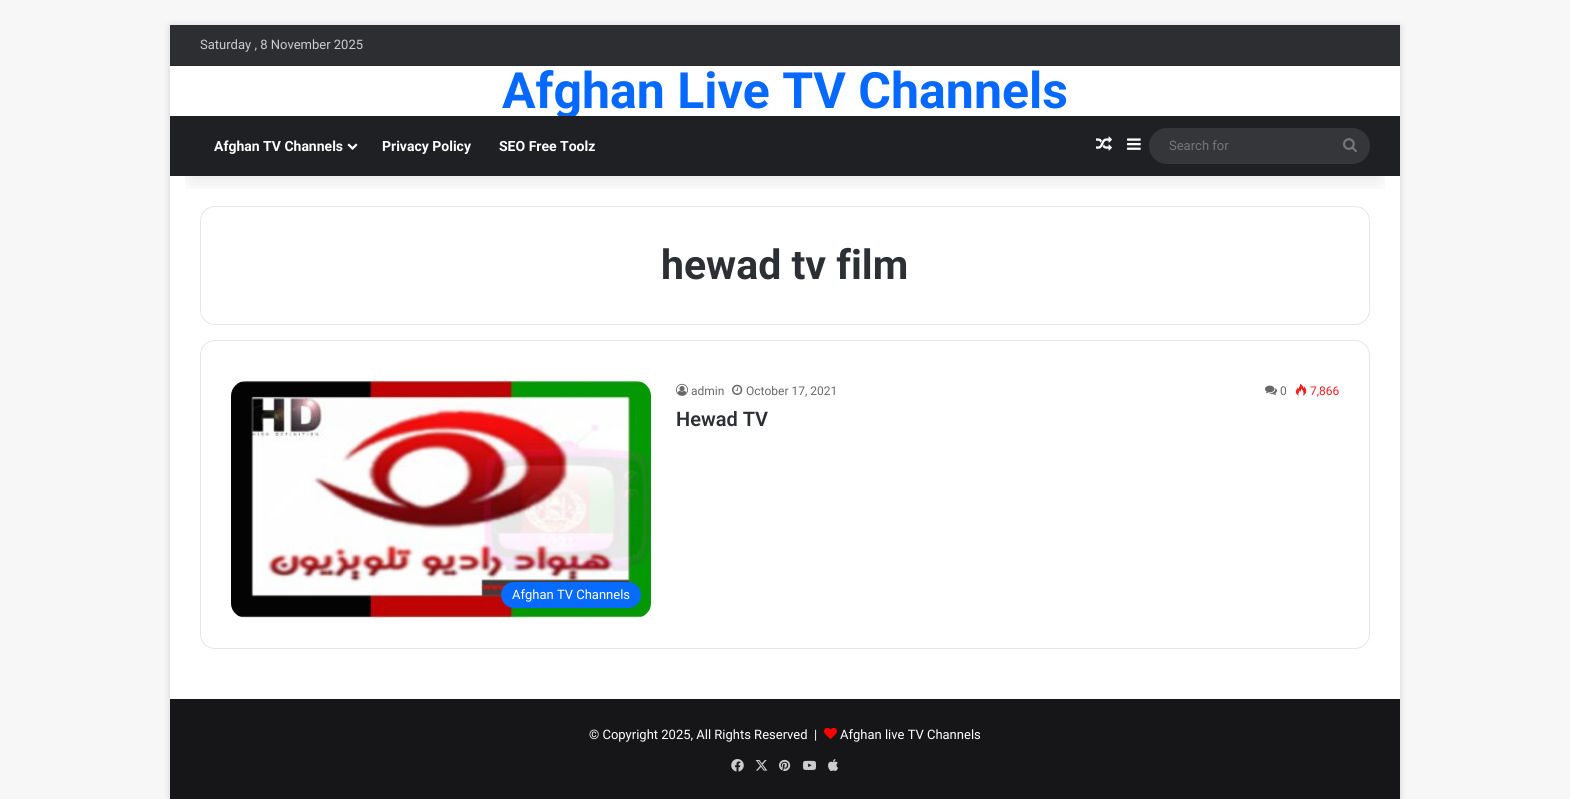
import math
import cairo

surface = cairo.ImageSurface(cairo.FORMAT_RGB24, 1570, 799)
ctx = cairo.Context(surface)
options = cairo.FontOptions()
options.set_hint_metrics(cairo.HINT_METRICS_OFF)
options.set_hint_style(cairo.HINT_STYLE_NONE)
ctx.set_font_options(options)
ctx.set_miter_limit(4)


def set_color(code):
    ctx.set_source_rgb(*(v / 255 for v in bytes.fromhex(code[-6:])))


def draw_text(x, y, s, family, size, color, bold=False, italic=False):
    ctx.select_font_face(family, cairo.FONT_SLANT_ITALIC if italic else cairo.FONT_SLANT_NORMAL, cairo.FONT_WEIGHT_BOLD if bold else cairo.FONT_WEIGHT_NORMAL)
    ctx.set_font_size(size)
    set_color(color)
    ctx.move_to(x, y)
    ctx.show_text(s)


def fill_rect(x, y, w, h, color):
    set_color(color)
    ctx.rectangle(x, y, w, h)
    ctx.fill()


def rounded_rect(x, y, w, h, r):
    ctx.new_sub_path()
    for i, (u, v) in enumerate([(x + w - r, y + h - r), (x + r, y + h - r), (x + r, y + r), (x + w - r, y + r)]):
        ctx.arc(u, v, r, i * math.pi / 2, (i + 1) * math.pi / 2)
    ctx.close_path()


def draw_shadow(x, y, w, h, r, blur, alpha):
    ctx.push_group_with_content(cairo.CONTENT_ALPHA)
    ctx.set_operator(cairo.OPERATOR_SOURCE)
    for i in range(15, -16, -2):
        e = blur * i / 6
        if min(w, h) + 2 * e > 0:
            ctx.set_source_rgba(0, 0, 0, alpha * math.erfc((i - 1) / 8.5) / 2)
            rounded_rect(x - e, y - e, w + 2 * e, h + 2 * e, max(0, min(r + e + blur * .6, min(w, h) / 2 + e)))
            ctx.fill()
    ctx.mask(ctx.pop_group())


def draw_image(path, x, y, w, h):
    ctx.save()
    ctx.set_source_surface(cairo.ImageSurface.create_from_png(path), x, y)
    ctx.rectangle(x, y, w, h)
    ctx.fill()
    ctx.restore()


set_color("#f7f7f7")
ctx.paint()
set_color("#ababab")
draw_shadow(170, 26, 1230, 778, 0, 3.5, 0.5)
fill_rect(170, 66, 1230, 633, "#ffffff")
rounded_rect(200.5, 206.5, 1169, 118, 14.5)
set_color("#e6e6e6")
ctx.set_line_width(1)
ctx.stroke()
ctx.save()
ctx.rectangle(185, 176, 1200, 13)
ctx.clip()
set_color("#000000")
draw_shadow(190, 70, 1190, 111, 0, 10, 0.1)
ctx.restore()
fill_rect(170, 25, 1230, 40, "#2c2e32")
fill_rect(170, 65, 1230, 1, "#28292d")
draw_text(200, 49, "Saturday , 8 November 2025", "Roboto", 13, "#cccccc")
draw_text(502, 108, "Afghan Live TV Channels", "Roboto", 50, "#0669ff", bold=True)
fill_rect(170, 116, 1230, 60, "#1f2024")
draw_text(214, 151, "Afghan TV Channels", "Roboto", 14, "#ffffff", bold=True)
draw_image("assets/img1.png", 347, 143, 11, 7)
draw_text(382, 151, "Privacy Policy", "Roboto", 14, "#ffffff", bold=True)
draw_text(499, 151, "SEO Free Toolz", "Roboto", 14, "#ffffff", bold=True)
draw_image("assets/img2.png", 1096, 136, 16, 15)
draw_image("assets/img3.png", 1127, 138, 14, 12)
set_color("#35363a")
rounded_rect(1149, 128, 221, 36, 18)
ctx.fill()
draw_text(1169, 150, "Search for", "Roboto", 13, "#757575")
draw_image("assets/img4.png", 1343, 138, 14, 14)
draw_text(661, 279, "hewad tv film", "Roboto", 41, "#2c2f34", bold=True)
rounded_rect(200.5, 340.5, 1169, 308, 14.5)
set_color("#e6e6e6")
ctx.stroke()
draw_image("assets/img5.png", 676, 383, 12, 13)
draw_text(691, 395, "admin", "Roboto", 12, "#686868")
draw_image("assets/img6.png", 732, 384, 11, 11)
draw_text(746, 395, "October 17, 2021", "Roboto", 12, "#686868")
draw_image("assets/img7.png", 1265, 385, 12, 10)
draw_text(1280, 395, "0", "Roboto", 12, "#686868")
draw_image("assets/img8.png", 1295, 383, 12, 13)
draw_text(1310, 395, "7,866", "Roboto", 12, "#f12020")
draw_text(676, 426, "Hewad TV", "Roboto SemiBold", 20, "#2c2f34")
draw_image("assets/img9.png", 231, 381, 420, 237)
set_color("#086bff")
rounded_rect(501, 582, 140, 26, 13)
ctx.fill()
draw_text(512, 599, "Afghan TV Channels", "Roboto", 13, "#ffffff")
fill_rect(170, 699, 1230, 100, "#161619")
draw_text(589, 739, "© Copyright 2025, All Rights Reserved  |", "Roboto", 13, "#ffffff")
draw_image("assets/img10.png", 824, 727, 13, 12)
draw_text(840, 739, "Afghan live TV Channels", "Roboto", 13, "#ffffff")
draw_image("assets/img11.png", 731, 759, 13, 13)
draw_image("assets/img12.png", 755, 760, 13, 11)
draw_image("assets/img13.png", 779, 759, 12, 12)
draw_image("assets/img14.png", 803, 760, 13, 10)
draw_image("assets/img15.png", 828, 759, 10, 12)
surface.write_to_png("output.png")
